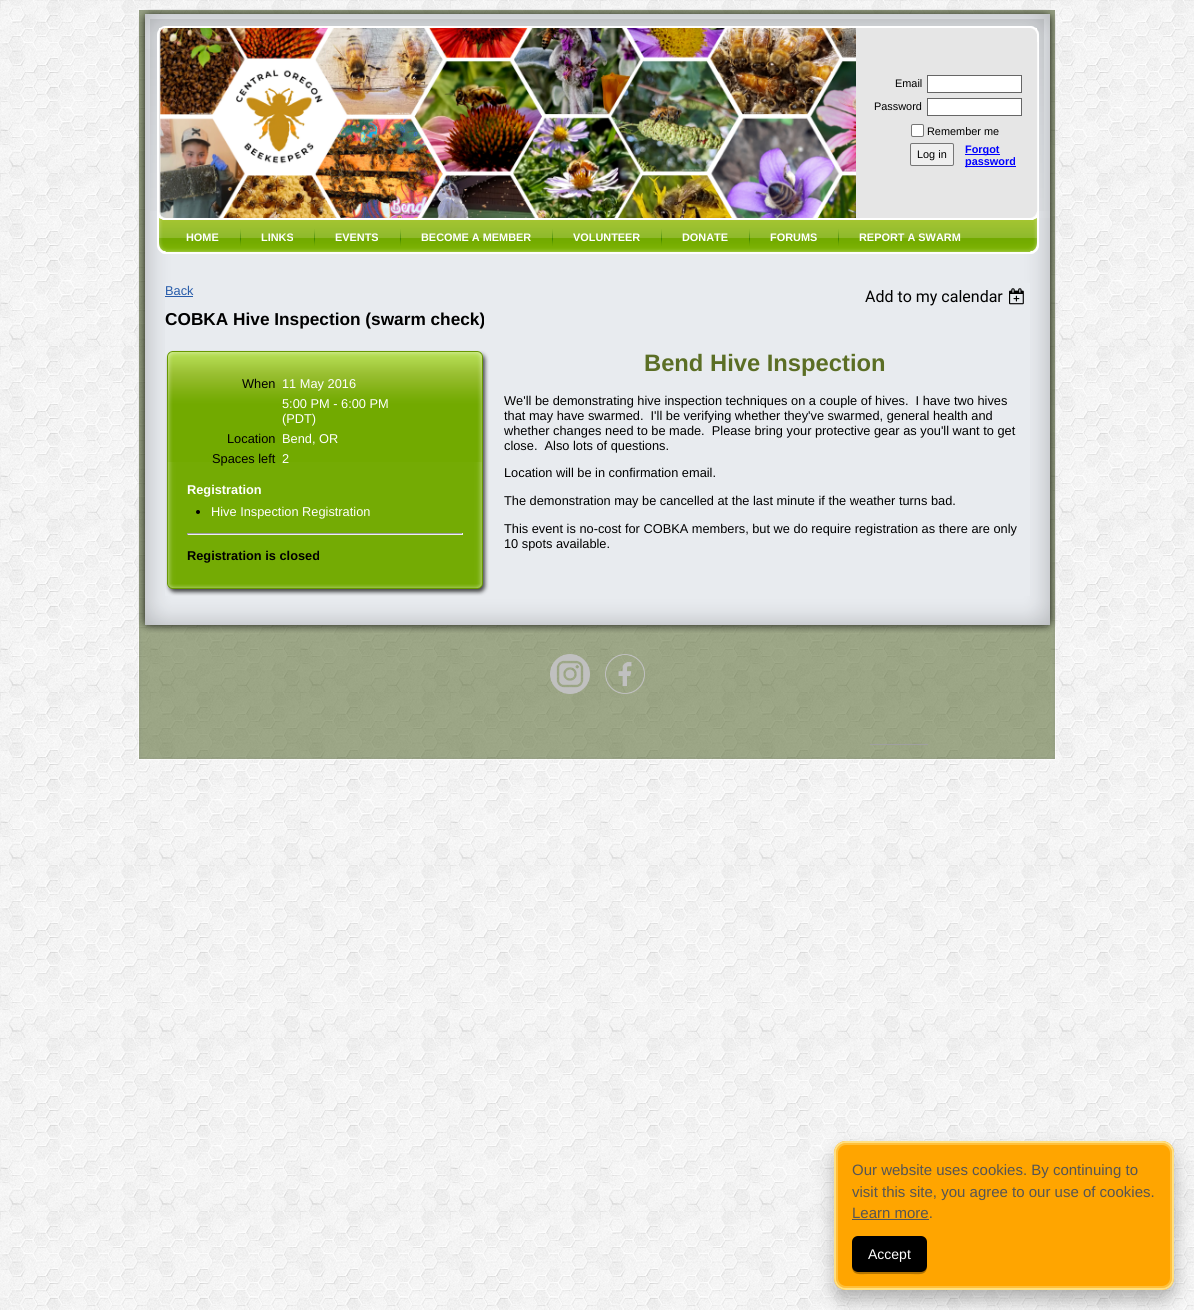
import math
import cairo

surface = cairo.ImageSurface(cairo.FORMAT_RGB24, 1194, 1310)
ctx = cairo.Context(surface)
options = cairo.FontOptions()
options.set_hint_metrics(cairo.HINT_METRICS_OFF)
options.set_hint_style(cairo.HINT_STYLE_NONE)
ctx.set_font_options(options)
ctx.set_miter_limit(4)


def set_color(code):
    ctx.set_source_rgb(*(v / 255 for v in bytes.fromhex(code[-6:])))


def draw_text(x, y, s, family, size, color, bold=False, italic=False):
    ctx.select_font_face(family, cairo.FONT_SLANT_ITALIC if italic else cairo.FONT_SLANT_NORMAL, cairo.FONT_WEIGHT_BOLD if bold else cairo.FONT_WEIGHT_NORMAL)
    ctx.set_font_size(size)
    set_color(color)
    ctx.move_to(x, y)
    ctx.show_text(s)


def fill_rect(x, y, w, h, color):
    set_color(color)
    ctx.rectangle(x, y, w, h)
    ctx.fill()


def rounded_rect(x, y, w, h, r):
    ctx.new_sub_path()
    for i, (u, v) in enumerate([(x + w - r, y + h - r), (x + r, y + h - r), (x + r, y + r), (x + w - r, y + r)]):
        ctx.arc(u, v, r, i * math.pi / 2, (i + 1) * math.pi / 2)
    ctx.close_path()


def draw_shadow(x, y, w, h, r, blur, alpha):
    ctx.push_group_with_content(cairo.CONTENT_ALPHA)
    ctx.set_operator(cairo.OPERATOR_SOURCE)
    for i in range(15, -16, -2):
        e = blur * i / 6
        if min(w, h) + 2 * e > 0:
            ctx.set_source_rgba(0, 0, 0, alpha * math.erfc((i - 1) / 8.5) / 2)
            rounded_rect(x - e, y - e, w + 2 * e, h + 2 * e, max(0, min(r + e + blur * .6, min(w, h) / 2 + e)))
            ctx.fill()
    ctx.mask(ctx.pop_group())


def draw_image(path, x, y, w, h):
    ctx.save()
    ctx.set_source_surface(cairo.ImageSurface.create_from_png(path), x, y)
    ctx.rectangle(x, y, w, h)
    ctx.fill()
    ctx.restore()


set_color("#ffffff")
ctx.paint()
draw_image("assets/img1.png", 0, 0, 1194, 1310)
draw_image("assets/img2.png", 138, 9, 918, 5)
draw_image("assets/img3.png", 138, 14, 918, 741)
draw_image("assets/img4.png", 138, 9, 918, 19)
fill_rect(145, 14, 905, 14, "#e8ebef")
draw_image("assets/img5.png", 145, 14, 905, 14)
draw_image("assets/img6.png", 138, 28, 918, 190)
fill_rect(145, 28, 905, 183, "#e8ebef")
draw_image("assets/img7.png", 145, 28, 905, 183)
fill_rect(159, 29, 2, 187, "#e6e6e6")
draw_image("assets/img8.png", 160, 28, 696, 190)
draw_image("assets/img9.png", 159, 28, 6, 6)
fill_rect(856, 28, 181, 190, "#e6e6e6")
draw_image("assets/img10.png", 1031, 28, 6, 6)
draw_text(895, 87, "Email", "Liberation Sans", 10.9, "#000000")
set_color("#ffffff")
ctx.rectangle(927.5, 75.5, 94, 17)
ctx.fill_preserve()
set_color("#666666")
ctx.set_line_width(1)
ctx.stroke()
draw_text(874, 110, "Password", "Liberation Sans", 10.9, "#000000")
set_color("#ffffff")
ctx.rectangle(927.5, 98.5, 94, 17)
ctx.fill_preserve()
set_color("#666666")
ctx.stroke()
set_color("#ffffff")
rounded_rect(911.5, 124.5, 12, 12, 1.5)
ctx.fill_preserve()
set_color("#767676")
ctx.stroke()
draw_text(927, 135, "Remember me", "Liberation Sans", 10.9, "#000000")
set_color("#efefef")
rounded_rect(910.5, 143.5, 43, 22, 1.5)
ctx.fill_preserve()
set_color("#767676")
ctx.stroke()
draw_text(917, 158, "Log in", "Liberation Sans", 10.9, "#000000")
fill_rect(965, 154, 35, 1, "#0000ff")
draw_text(965, 153, "Forgot", "Liberation Sans", 10.9, "#0000ff", bold=True)
fill_rect(965, 166, 51, 1, "#0000ff")
draw_text(965, 165, "password", "Liberation Sans", 10.9, "#0000ff", bold=True)
fill_rect(145, 211, 14, 7, "#e8ebef")
draw_image("assets/img11.png", 145, 211, 14, 7)
draw_image("assets/img12.png", 159, 212, 878, 6)
fill_rect(1037, 211, 13, 7, "#e8ebef")
draw_image("assets/img13.png", 1037, 211, 13, 7)
draw_image("assets/img14.png", 157, 212, 882, 6)
draw_image("assets/img15.png", 138, 218, 918, 36)
fill_rect(145, 218, 905, 36, "#e8ebef")
draw_image("assets/img16.png", 145, 218, 905, 36)
draw_text(186, 241, "HOME", "Liberation Sans", 10.9, "#ffffff", bold=True)
draw_image("assets/img17.png", 240, 229, 1, 17)
draw_text(261, 241, "LINKS", "Liberation Sans", 10.9, "#ffffff", bold=True)
draw_image("assets/img17.png", 314, 229, 1, 17)
draw_text(335, 241, "EVENTS", "Liberation Sans", 10.9, "#ffffff", bold=True)
draw_image("assets/img17.png", 400, 229, 1, 17)
draw_text(421, 241, "BECOME A MEMBER", "Liberation Sans", 10.9, "#ffffff", bold=True)
draw_image("assets/img17.png", 552, 229, 1, 17)
draw_text(573, 241, "VOLUNTEER", "Liberation Sans", 10.9, "#ffffff", bold=True)
draw_image("assets/img17.png", 661, 229, 1, 17)
draw_text(682, 241, "DONATE", "Liberation Sans", 10.9, "#ffffff", bold=True)
draw_image("assets/img17.png", 749, 229, 1, 17)
draw_text(770, 241, "FORUMS", "Liberation Sans", 10.9, "#ffffff", bold=True)
draw_image("assets/img17.png", 838, 229, 1, 17)
draw_text(859, 241, "REPORT A SWARM", "Liberation Sans", 10.9, "#ffffff", bold=True)
draw_image("assets/img18.png", 138, 254, 918, 342)
fill_rect(145, 254, 905, 342, "#e8ebef")
draw_image("assets/img19.png", 145, 254, 905, 342)
fill_rect(165, 283, 865, 313, "#e8ebef")
draw_text(165, 295, "Back", "Liberation Sans", 12.8, "#285caa")
fill_rect(165, 296, 28, 1, "#285caa")
draw_text(865, 302, "Add to my calendar", "Roboto", 16, "#000000")
draw_image("assets/img20.png", 1009, 288, 15, 17)
draw_text(165, 325, "COBKA Hive Inspection (swarm check)", "Liberation Sans", 17.25, "#000000", bold=True)
draw_image("assets/img21.png", 165, 350, 324, 12)
draw_image("assets/img22.png", 165, 362, 324, 222)
draw_image("assets/img23.png", 167, 362, 316, 100)
draw_text(242, 388, "When", "Liberation Sans", 12.8, "#000000")
draw_text(282, 388, "11 May 2016", "Liberation Sans", 12.8, "#ffffff")
draw_text(282, 408, "5:00 PM - 6:00 PM", "Liberation Sans", 12.8, "#ffffff")
draw_text(282, 423, "(PDT)", "Liberation Sans", 12.8, "#ffffff")
draw_text(227, 443, "Location", "Liberation Sans", 12.8, "#000000")
draw_text(282, 443, "Bend, OR", "Liberation Sans", 12.8, "#ffffff")
draw_text(212, 463, "Spaces left", "Liberation Sans", 12.8, "#000000")
draw_text(282, 463, "2", "Liberation Sans", 12.8, "#ffffff")
draw_text(187, 494, "Registration", "Liberation Sans", 12.8, "#ffffff", bold=True)
set_color("#000000")
ctx.new_path()
ctx.arc(198, 512, 2, 0, 2 * math.pi)
ctx.fill()
draw_text(211, 516, "Hive Inspection Registration", "Liberation Sans", 12.8, "#ffffff")
fill_rect(187, 533, 276, 1, "#9f9f9f")
fill_rect(462, 533, 1, 2, "#eeeeee")
fill_rect(187, 534, 276, 1, "#eeeeee")
fill_rect(187, 533, 1, 2, "#9f9f9f")
draw_text(187, 560, "Registration is closed", "Liberation Sans", 12.8, "#000000", bold=True)
draw_image("assets/img24.png", 165, 584, 324, 12)
draw_text(644, 371, "Bend Hive Inspection", "Liberation Sans", 23.75, "#5b6e25", bold=True)
draw_text(504, 405, "We'll be demonstrating hive inspection techniques on a couple of hives.  I have two hives", "Liberation Sans", 12.8, "#000000")
draw_text(504, 420, "that may have swarmed.  I'll be verifying whether they've swarmed, general health and", "Liberation Sans", 12.8, "#000000")
draw_text(504, 435, "whether changes need to be made.  Please bring your protective gear as you'll want to get", "Liberation Sans", 12.8, "#000000")
draw_text(504, 450, "close.  Also lots of questions.", "Liberation Sans", 12.8, "#000000")
draw_text(504, 477, "Location will be in confirmation email.", "Liberation Sans", 12.8, "#000000")
draw_text(504, 505, "The demonstration may be cancelled at the last minute if the weather turns bad.", "Liberation Sans", 12.8, "#000000")
draw_text(504, 533, "This event is no-cost for COBKA members, but we do require registration as there are only", "Liberation Sans", 12.8, "#000000")
draw_text(504, 548, "10 spots available.", "Liberation Sans", 12.8, "#000000")
draw_image("assets/img25.png", 138, 596, 918, 37)
fill_rect(145, 596, 905, 29, "#e8ebef")
draw_image("assets/img26.png", 145, 596, 905, 29)
fill_rect(870, 744, 58, 1, "#a0a0a0")
draw_image("assets/img27.png", 550, 654, 40, 40)
draw_image("assets/img28.png", 605, 654, 40, 40)
set_color("#000000")
draw_shadow(834, 1151, 340, 149, 12, 9, 0.28)
set_color("#ffa500")
rounded_rect(834, 1141, 340, 149, 12)
ctx.fill()
rounded_rect(837, 1144, 334, 143, 9)
set_color("#ffc03b")
ctx.set_line_width(2)
ctx.stroke()
rounded_rect(835, 1142, 338, 147, 11)
set_color("#ffe082")
ctx.stroke()
draw_text(852, 1175, "Our website uses cookies. By continuing to", "Liberation Sans", 15, "#555555")
draw_text(852, 1197, "visit this site, you agree to our use of cookies.", "Liberation Sans", 15, "#555555")
draw_text(852, 1218, "Learn more.", "Liberation Sans", 15, "#555555")
fill_rect(852, 1219, 77, 1, "#555555")
set_color("#b37400")
ctx.new_path()
ctx.move_to(852, 1266)
ctx.curve_to(852, 1276, 860, 1274, 868, 1274)
ctx.line_to(910, 1274)
ctx.curve_to(919, 1274, 927, 1276, 927, 1266)
ctx.curve_to(927, 1269, 924, 1272, 921, 1272)
ctx.line_to(858, 1272)
ctx.curve_to(855, 1272, 852, 1269, 852, 1266)
ctx.close_path()
ctx.fill()
set_color("#000000")
rounded_rect(852, 1236, 75, 36, 6)
ctx.fill()
draw_text(868, 1259, "Accept", "Liberation Sans", 14, "#ffffff")
draw_image("assets/img29.png", 138, 755, 918, 5)
surface.write_to_png("output.png")
